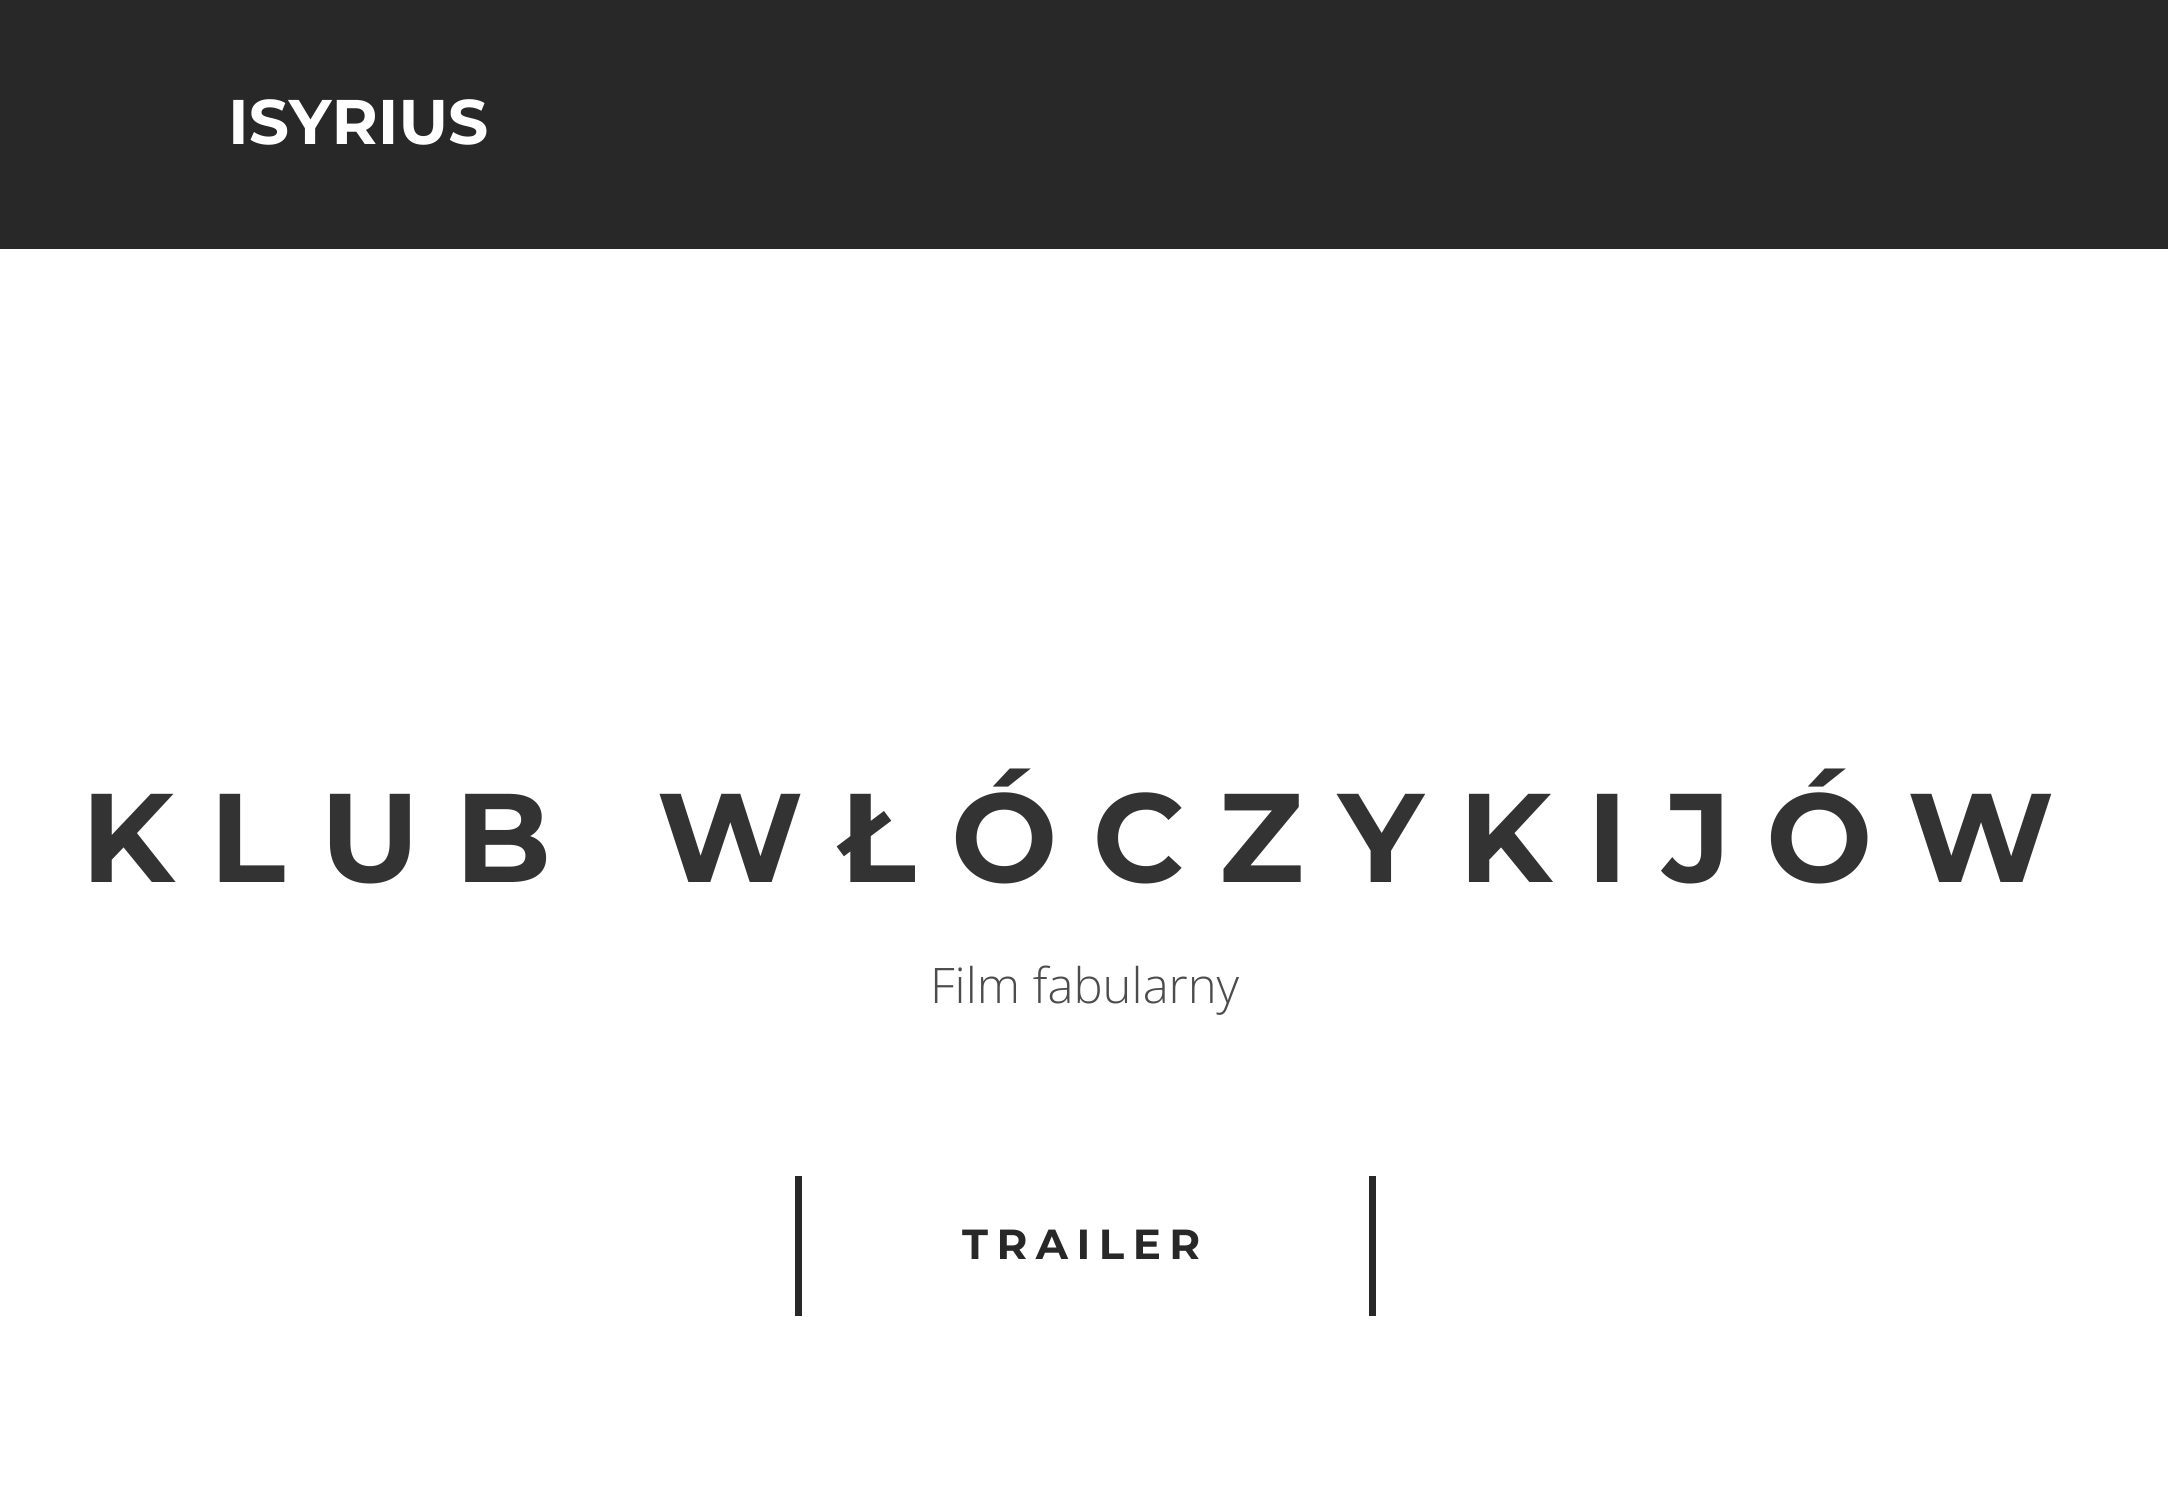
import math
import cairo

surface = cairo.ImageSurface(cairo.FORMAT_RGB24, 2168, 1487)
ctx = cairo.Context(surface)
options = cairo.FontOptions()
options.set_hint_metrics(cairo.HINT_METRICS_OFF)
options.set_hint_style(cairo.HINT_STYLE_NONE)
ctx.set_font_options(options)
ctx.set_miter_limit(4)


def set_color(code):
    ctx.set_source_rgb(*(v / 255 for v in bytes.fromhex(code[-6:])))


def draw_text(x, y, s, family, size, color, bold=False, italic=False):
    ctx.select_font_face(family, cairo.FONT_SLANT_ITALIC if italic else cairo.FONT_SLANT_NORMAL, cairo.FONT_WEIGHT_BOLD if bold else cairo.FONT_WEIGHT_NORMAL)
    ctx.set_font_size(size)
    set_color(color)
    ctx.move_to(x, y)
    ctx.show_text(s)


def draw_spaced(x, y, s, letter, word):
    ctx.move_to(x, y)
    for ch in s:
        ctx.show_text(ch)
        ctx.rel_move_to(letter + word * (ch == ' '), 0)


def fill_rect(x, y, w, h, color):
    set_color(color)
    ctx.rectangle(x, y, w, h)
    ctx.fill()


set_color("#ffffff")
ctx.paint()
fill_rect(0, 0, 2168, 249, "#282828")
draw_text(228, 144, "ISYRIUS", "Montserrat", 63, "#ffffff", bold=True)
ctx.set_font_size(126)
set_color("#333333")
draw_spaced(81, 882, "KLUB WŁÓCZYKIJÓW", 35, 0)
draw_text(930, 1003, "Film fabularny", "Open Sans Light", 49, "#4c4c4c")
fill_rect(795, 1176, 7, 140, "#282828")
ctx.select_font_face("Montserrat", cairo.FONT_SLANT_NORMAL, cairo.FONT_WEIGHT_BOLD)
ctx.set_font_size(42)
draw_spaced(962, 1259, "TRAILER", 8.5, 0)
fill_rect(1369, 1176, 7, 140, "#282828")
surface.write_to_png("output.png")
